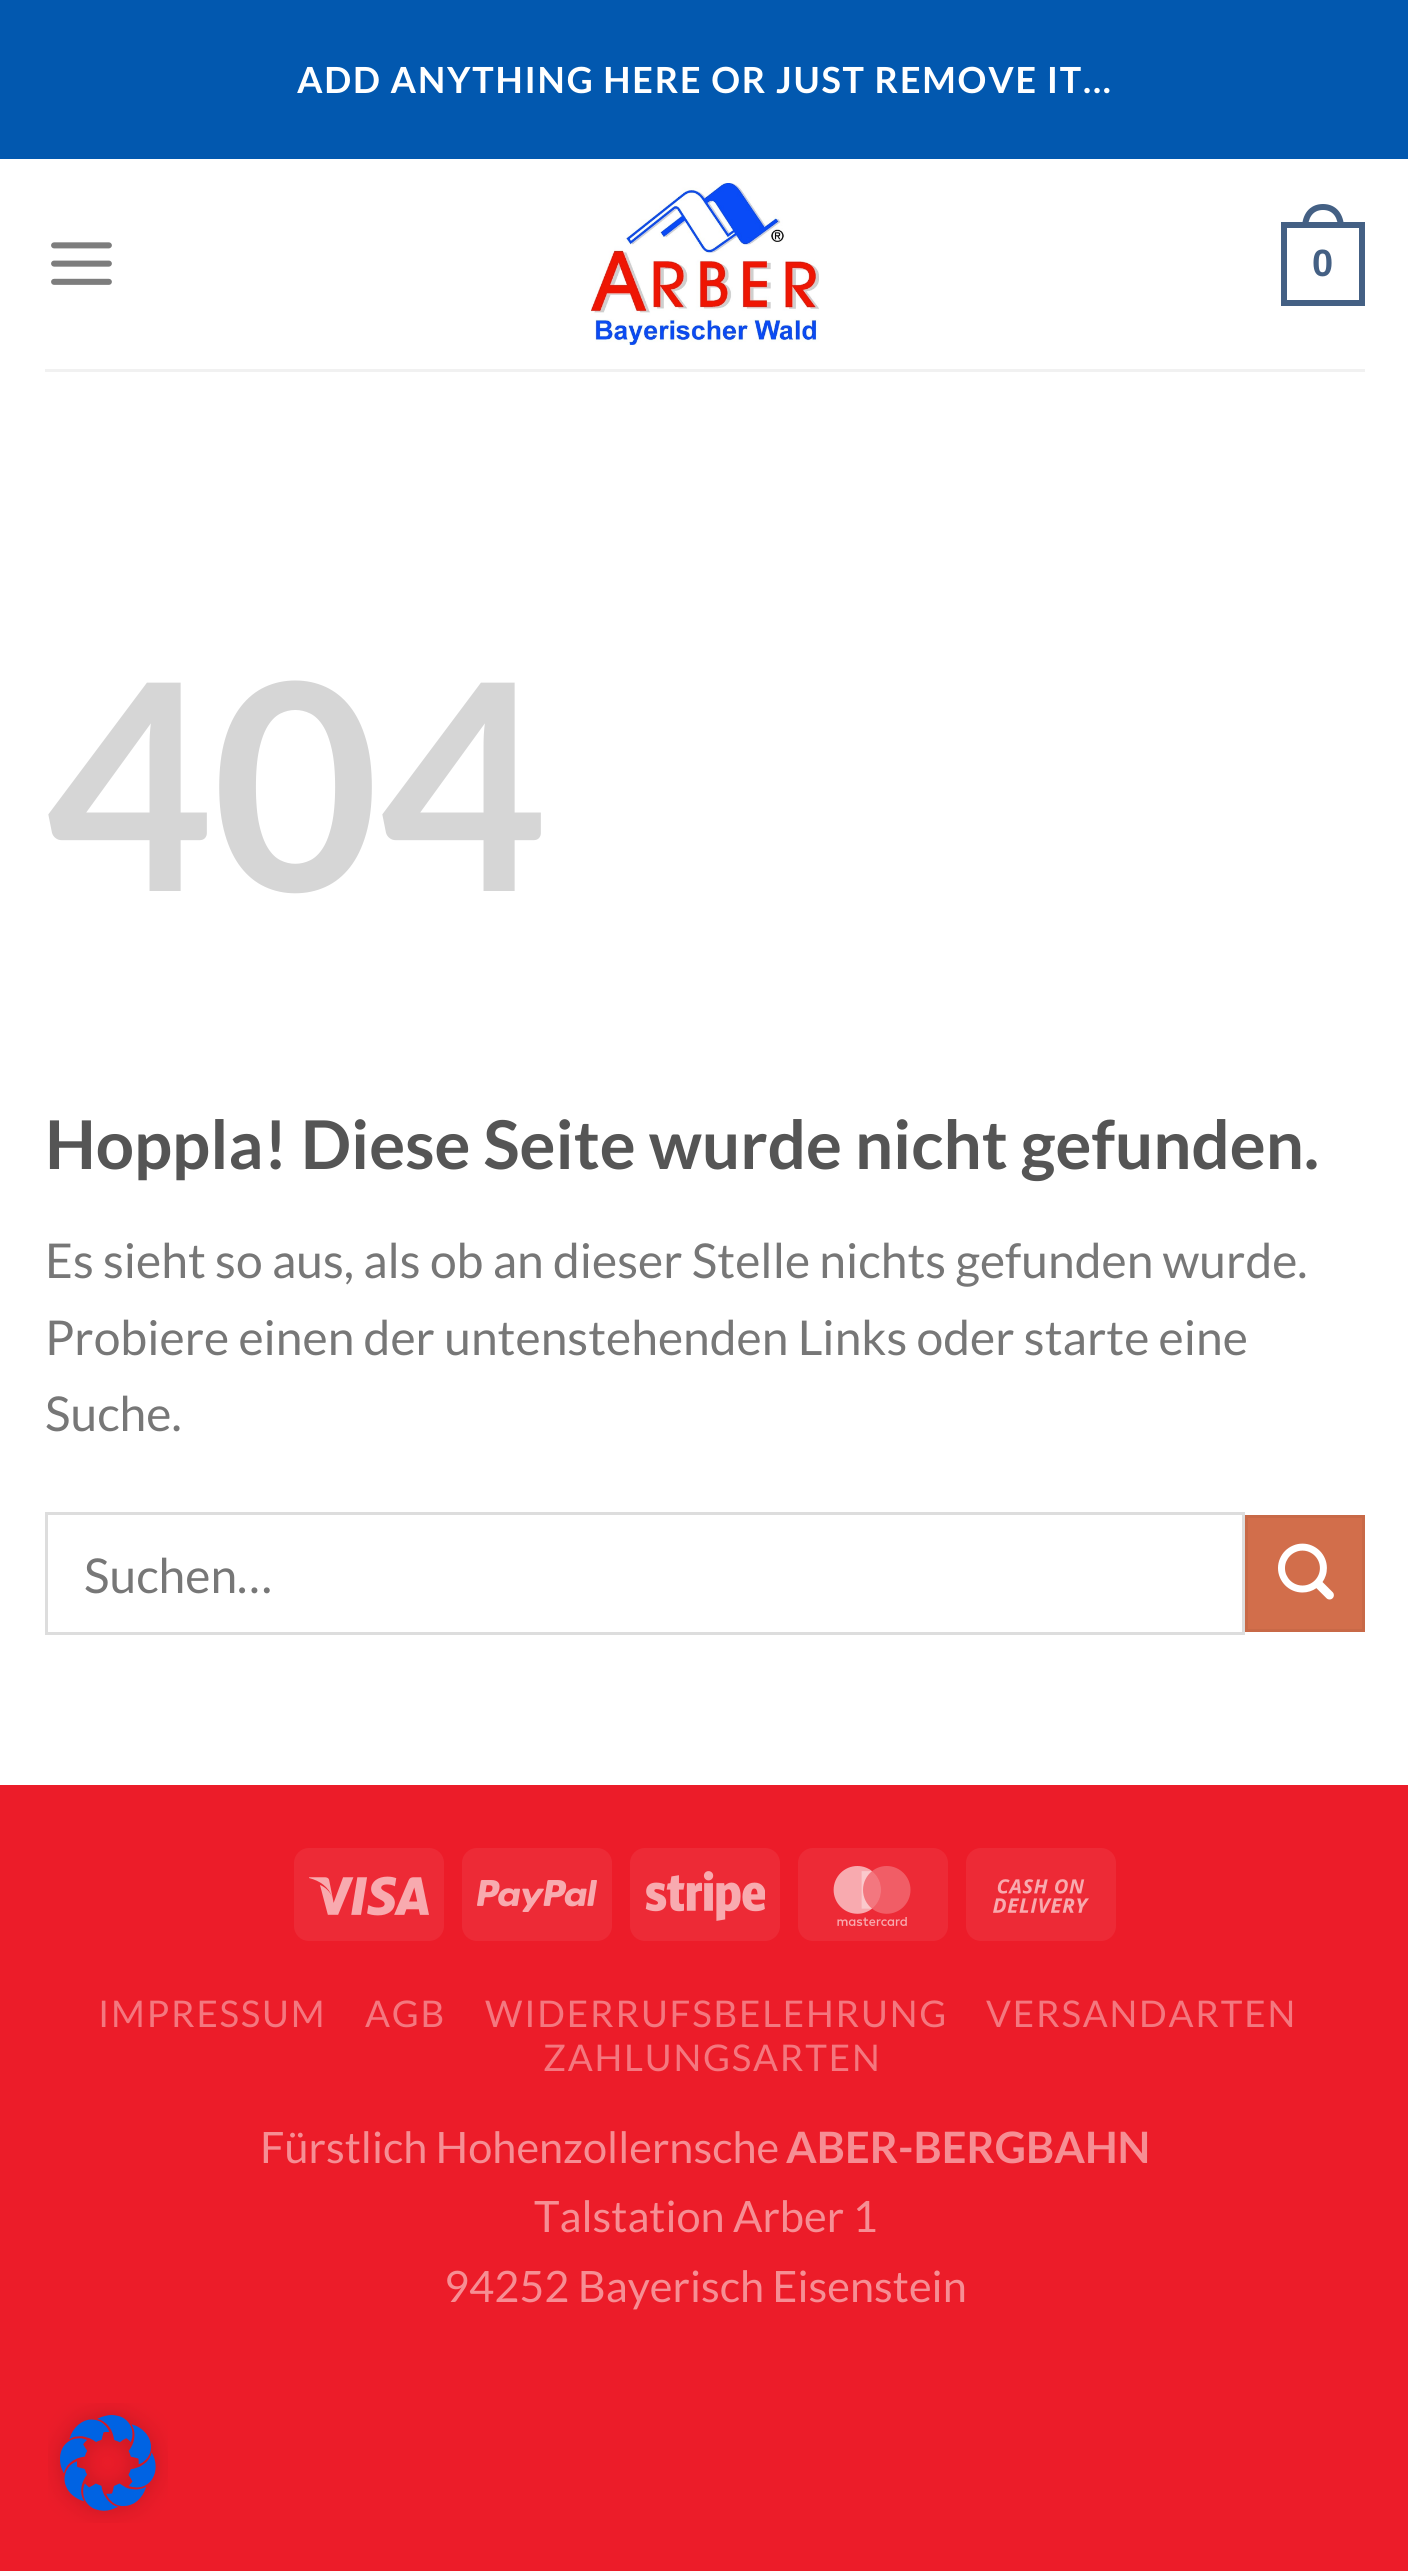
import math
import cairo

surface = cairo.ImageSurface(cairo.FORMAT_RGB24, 1408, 2571)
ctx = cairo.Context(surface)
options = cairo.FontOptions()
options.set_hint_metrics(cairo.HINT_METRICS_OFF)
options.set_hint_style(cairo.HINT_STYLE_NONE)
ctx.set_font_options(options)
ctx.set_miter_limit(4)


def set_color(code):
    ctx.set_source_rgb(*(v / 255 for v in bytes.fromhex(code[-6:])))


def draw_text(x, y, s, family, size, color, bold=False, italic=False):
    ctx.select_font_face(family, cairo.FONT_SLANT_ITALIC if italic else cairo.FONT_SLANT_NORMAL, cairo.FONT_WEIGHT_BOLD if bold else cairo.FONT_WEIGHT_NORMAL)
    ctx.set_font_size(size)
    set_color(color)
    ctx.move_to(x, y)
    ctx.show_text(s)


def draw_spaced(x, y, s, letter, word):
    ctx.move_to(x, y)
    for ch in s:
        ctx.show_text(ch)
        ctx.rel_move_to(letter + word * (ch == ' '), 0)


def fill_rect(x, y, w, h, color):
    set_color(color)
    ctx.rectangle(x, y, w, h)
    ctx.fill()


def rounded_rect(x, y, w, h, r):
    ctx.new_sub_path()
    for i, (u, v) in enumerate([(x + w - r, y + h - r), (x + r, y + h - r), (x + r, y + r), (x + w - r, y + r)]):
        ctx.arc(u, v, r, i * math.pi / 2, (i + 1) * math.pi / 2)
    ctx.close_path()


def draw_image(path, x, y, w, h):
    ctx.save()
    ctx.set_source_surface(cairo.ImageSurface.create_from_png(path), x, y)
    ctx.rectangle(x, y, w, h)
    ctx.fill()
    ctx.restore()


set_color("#ec1c29")
ctx.paint()
fill_rect(0, 159, 1408, 1626, "#ffffff")
fill_rect(0, 0, 1408, 159, "#0258af")
ctx.select_font_face("Lato", cairo.FONT_SLANT_NORMAL, cairo.FONT_WEIGHT_BOLD)
ctx.set_font_size(36)
set_color("#ffffff")
draw_spaced(297, 93, "ADD ANYTHING HERE OR JUST REMOVE IT...", 1.8, 0)
draw_image("assets/img1.png", 51, 242, 61, 43)
draw_image("assets/img2.png", 591, 183, 228, 162)
ctx.rectangle(1284, 225, 78, 78)
set_color("#446084")
ctx.set_line_width(6)
ctx.stroke()
ctx.set_fill_rule(cairo.FILL_RULE_EVEN_ODD)
ctx.new_path()
ctx.move_to(1323, 204)
ctx.curve_to(1337, 204, 1344, 215, 1344, 228)
ctx.line_to(1302, 228)
ctx.curve_to(1302, 215, 1309, 204, 1323, 204)
ctx.close_path()
ctx.move_to(1323, 210)
ctx.curve_to(1334, 210, 1338, 219, 1338, 228)
ctx.line_to(1308, 228)
ctx.curve_to(1308, 219, 1312, 210, 1323, 210)
ctx.close_path()
ctx.fill()
draw_text(1312, 276, "0", "Liberation Sans", 38, "#446084", bold=True)
fill_rect(45, 369, 1320, 3, "#f1f1f1")
draw_text(45, 891, "404", "Lato", 288, "#d6d6d6", bold=True)
draw_text(45, 1169, "Hoppla! Diese Seite wurde nicht gefunden.", "Lato", 67.25, "#555555", bold=True)
draw_text(45, 1278, "Es sieht so aus, als ob an dieser Stelle nichts gefunden wurde.", "Lato", 48, "#777777")
draw_text(45, 1355, "Probiere einen der untenstehenden Links oder starte eine", "Lato", 48, "#777777")
draw_text(45, 1431, "Suche.", "Lato", 48, "#777777")
ctx.rectangle(46.5, 1513.5, 1197, 120)
set_color("#dddddd")
ctx.set_line_width(3)
ctx.stroke()
draw_text(84, 1593, "Suchen…", "Lato", 48, "#777777")
set_color("#d26e4b")
ctx.rectangle(1246.5, 1516.5, 117, 114)
ctx.fill_preserve()
set_color("#c86947")
ctx.stroke()
draw_image("assets/img3.png", 1278, 1543, 56, 57)
set_color("#ed2a36")
rounded_rect(294, 1848, 150, 93, 15)
ctx.fill()
draw_image("assets/img4.png", 309, 1876, 120, 40)
rounded_rect(462, 1848, 150, 93, 15)
ctx.fill()
draw_image("assets/img5.png", 477, 1880, 120, 32)
rounded_rect(630, 1848, 150, 93, 15)
ctx.fill()
draw_image("assets/img6.png", 645, 1871, 120, 50)
rounded_rect(798, 1848, 150, 93, 15)
ctx.fill()
draw_image("assets/img7.png", 833, 1866, 78, 60)
rounded_rect(966, 1848, 150, 93, 15)
ctx.fill()
draw_image("assets/img8.png", 993, 1879, 96, 34)
ctx.set_font_size(36.75)
set_color("#f4777f")
draw_spaced(98, 2027, "IMPRESSUM", 1.8, 0)
draw_spaced(365, 2027, "AGB", 1.8, 0)
draw_spaced(485, 2027, "WIDERRUFSBELEHRUNG", 1.8, 0)
draw_spaced(986, 2027, "VERSANDARTEN", 1.8, 0)
draw_spaced(543, 2071, "ZAHLUNGSARTEN", 1.8, 0)
draw_text(260, 2163, "Fürstlich Hohenzollernsche", "Lato", 43.25, "#f68e94")
draw_text(786, 2163, "ABER-BERGBAHN", "Lato", 43.25, "#f68e94", bold=True)
draw_text(534, 2232, "Talstation Arber 1", "Lato", 43.25, "#f68e94")
draw_text(444, 2302, "94252 Bayerisch Eisenstein", "Lato", 43.25, "#f68e94")
draw_image("assets/img9.png", 48, 2403, 120, 120)
surface.write_to_png("output.png")
